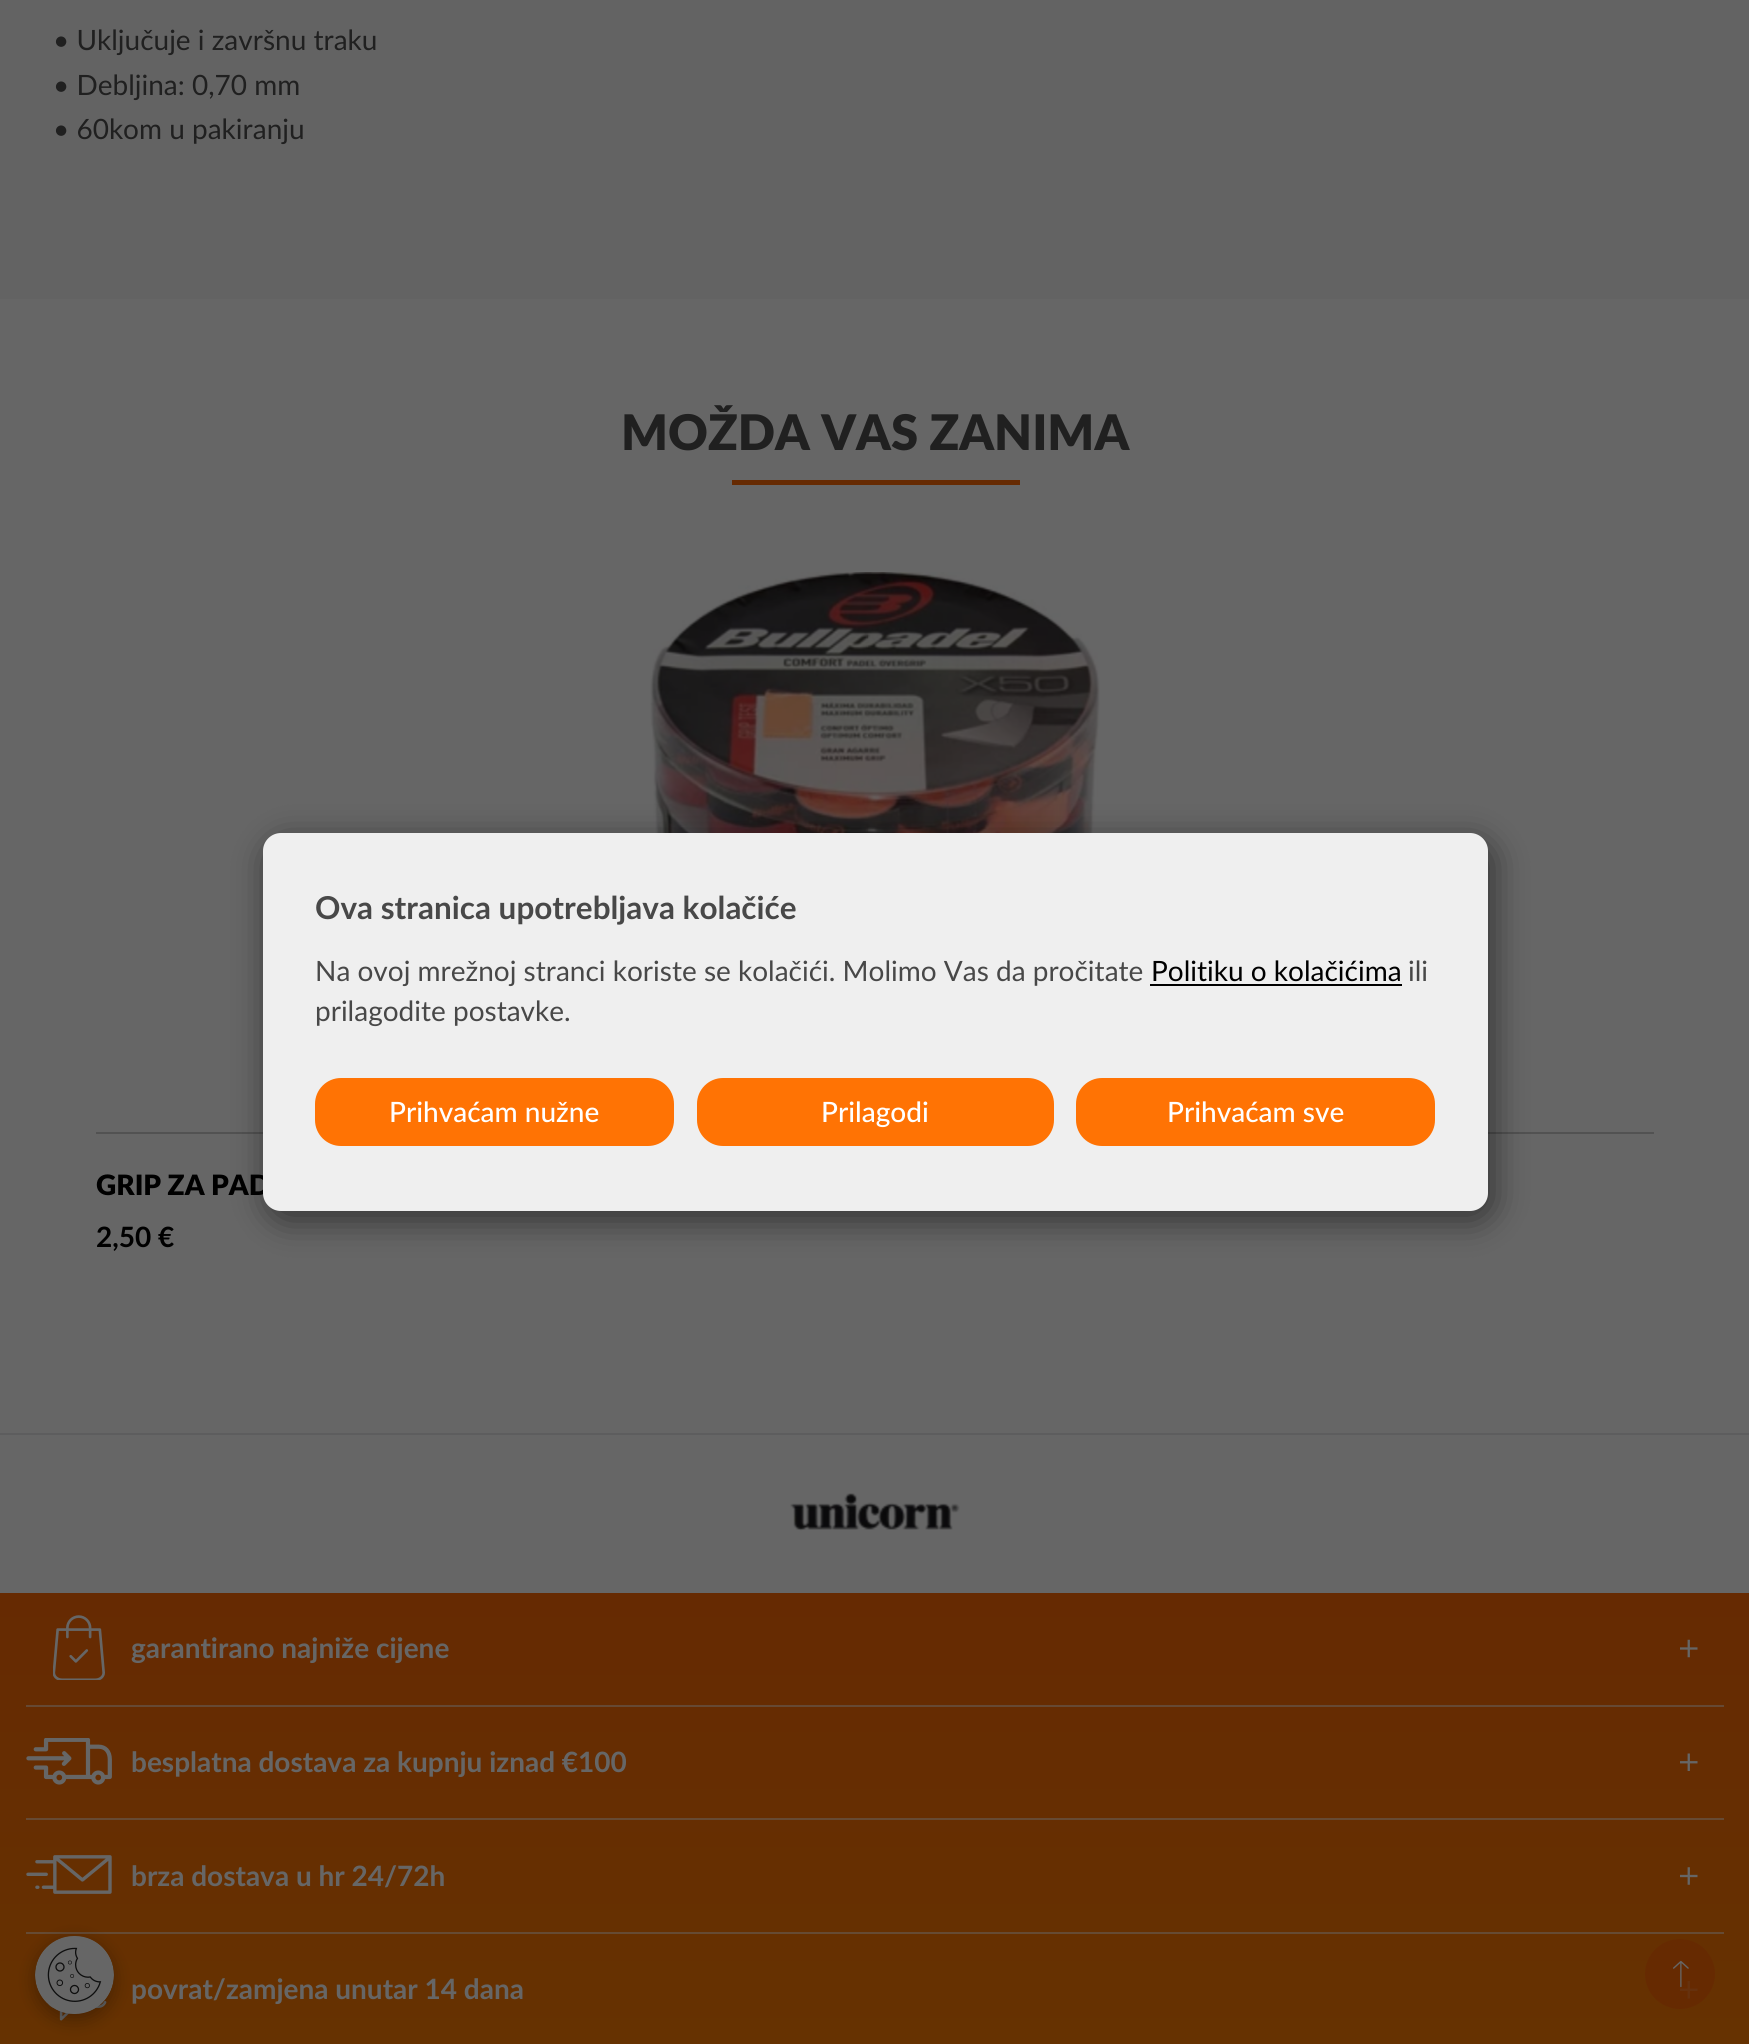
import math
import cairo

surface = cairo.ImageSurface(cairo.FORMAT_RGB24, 1749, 2044)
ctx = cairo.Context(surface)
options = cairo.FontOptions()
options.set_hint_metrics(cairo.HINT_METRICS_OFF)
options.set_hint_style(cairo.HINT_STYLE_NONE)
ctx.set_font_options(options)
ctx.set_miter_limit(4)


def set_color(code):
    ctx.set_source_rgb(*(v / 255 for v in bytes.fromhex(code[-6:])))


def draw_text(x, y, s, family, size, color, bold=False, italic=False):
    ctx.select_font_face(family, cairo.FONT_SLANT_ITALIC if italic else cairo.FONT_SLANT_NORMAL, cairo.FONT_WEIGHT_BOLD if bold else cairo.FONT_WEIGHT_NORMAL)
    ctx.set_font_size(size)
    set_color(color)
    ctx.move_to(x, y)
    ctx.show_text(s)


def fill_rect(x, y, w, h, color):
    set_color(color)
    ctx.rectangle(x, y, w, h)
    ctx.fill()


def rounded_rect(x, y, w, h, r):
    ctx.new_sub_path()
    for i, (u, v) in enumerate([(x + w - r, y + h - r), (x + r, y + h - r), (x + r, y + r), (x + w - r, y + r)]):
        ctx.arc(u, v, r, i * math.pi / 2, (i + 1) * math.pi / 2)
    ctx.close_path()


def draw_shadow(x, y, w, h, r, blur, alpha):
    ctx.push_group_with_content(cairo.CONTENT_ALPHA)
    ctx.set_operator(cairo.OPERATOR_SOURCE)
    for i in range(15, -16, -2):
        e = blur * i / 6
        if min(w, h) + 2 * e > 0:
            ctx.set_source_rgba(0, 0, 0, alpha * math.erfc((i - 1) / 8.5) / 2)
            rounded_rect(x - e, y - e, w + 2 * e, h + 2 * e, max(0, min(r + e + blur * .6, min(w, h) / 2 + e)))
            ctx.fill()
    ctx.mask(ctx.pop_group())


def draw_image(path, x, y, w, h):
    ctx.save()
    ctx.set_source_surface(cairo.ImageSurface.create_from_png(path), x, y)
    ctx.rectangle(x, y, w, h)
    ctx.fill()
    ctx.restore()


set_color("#666666")
ctx.paint()
fill_rect(0, 0, 1749, 299, "#636363")
draw_text(53, 50, "• Uključuje i završnu traku", "Lato", 28, "#202020")
draw_text(53, 95, "• Debljina: 0,70 mm", "Lato", 28, "#202020")
draw_text(53, 139, "• 60kom u pakiranju", "Lato", 28, "#202020")
draw_text(621, 450, "MOŽDA VAS ZANIMA", "Lato Black", 49, "#202020")
fill_rect(732, 480, 288, 5, "#662a02")
draw_image("assets/img1.png", 650, 572, 450, 261)
fill_rect(96, 1132, 1558, 2, "#525252")
draw_text(96, 1195, "GRIP ZA PAD", "Lato Black", 28, "#000000")
draw_text(96, 1247, "2,50 €", "Lato", 28, "#000000", bold=True)
fill_rect(0, 1433, 1749, 2, "#5d5d5e")
draw_image("assets/img2.png", 790, 1493, 170, 38)
gradient = cairo.LinearGradient(875, 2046, 875, 1593)
gradient.add_color_stop_rgba(0, 0.4, 0.196, 0.004, 1)
gradient.add_color_stop_rgba(1, 0.4, 0.165, 0.008, 1)
ctx.set_source(gradient)
ctx.rectangle(0, 1593, 1749, 451)
ctx.fill()
fill_rect(26, 1705, 1698, 2, "#664934")
draw_image("assets/img3.png", 53, 1615, 52, 65)
draw_text(131, 1658, "garantirano najniže cijene", "Lato", 28, "#666666", bold=True)
draw_image("assets/img4.png", 1680, 1639, 18, 19)
fill_rect(26, 1818, 1698, 2, "#664a34")
draw_image("assets/img5.png", 26, 1738, 86, 47)
draw_text(131, 1772, "besplatna dostava za kupnju iznad €100", "Lato", 28, "#666666", bold=True)
draw_image("assets/img6.png", 1680, 1753, 18, 18)
fill_rect(26, 1932, 1698, 2, "#664b34")
draw_image("assets/img7.png", 26, 1855, 86, 39)
draw_text(131, 1886, "brza dostava u hr 24/72h", "Lato", 28, "#666666", bold=True)
draw_image("assets/img8.png", 1680, 1867, 18, 18)
draw_text(131, 1999, "povrat/zamjena unutar 14 dana", "Lato", 28, "#666666", bold=True)
draw_image("assets/img9.png", 1680, 1981, 18, 18)
draw_image("assets/img10.png", 48, 1995, 60, 26)
ctx.set_source_rgba(0.4, 0.165, 0.008, 0.87)
ctx.arc(1680, 1974, 35, 0, 2 * math.pi)
ctx.fill()
draw_image("assets/img11.png", 1673, 1960, 16, 28)
set_color("#000000")
draw_shadow(268, 842, 1225, 378, 18, 17.5, 0.5)
set_color("#efefef")
rounded_rect(263, 833, 1225, 378, 18)
ctx.fill()
draw_text(315, 919, "Ova stranica upotrebljava kolačiće", "Lato", 31.5, "#484848", bold=True)
draw_text(315, 981, "Na ovoj mrežnoj stranci koriste se kolačići. Molimo Vas da pročitate", "Lato", 28, "#484848")
draw_text(1151, 981, "Politiku o kolačićima", "Lato", 28, "#000000")
fill_rect(1150, 984, 252, 2, "#000000")
draw_text(1408, 981, "ili", "Lato", 28, "#484848")
draw_text(315, 1021, "prilagodite postavke.", "Lato", 28, "#484848")
set_color("#ff7304")
rounded_rect(315, 1078, 359, 68, 26)
ctx.fill()
draw_text(389, 1122, "Prihvaćam nužne", "Lato Medium", 28, "#ffffff")
set_color("#ff7304")
rounded_rect(697, 1078, 357, 68, 26)
ctx.fill()
draw_text(821, 1122, "Prilagodi", "Lato Medium", 28, "#ffffff")
set_color("#ff7304")
rounded_rect(1076, 1078, 359, 68, 26)
ctx.fill()
draw_text(1167, 1122, "Prihvaćam sve", "Lato Medium", 28, "#ffffff")
set_color("#000000")
draw_shadow(35, 1941, 79, 79, 39.5, 9, 0.3)
draw_image("assets/img12.png", 35, 1936, 79, 78)
surface.write_to_png("output.png")
